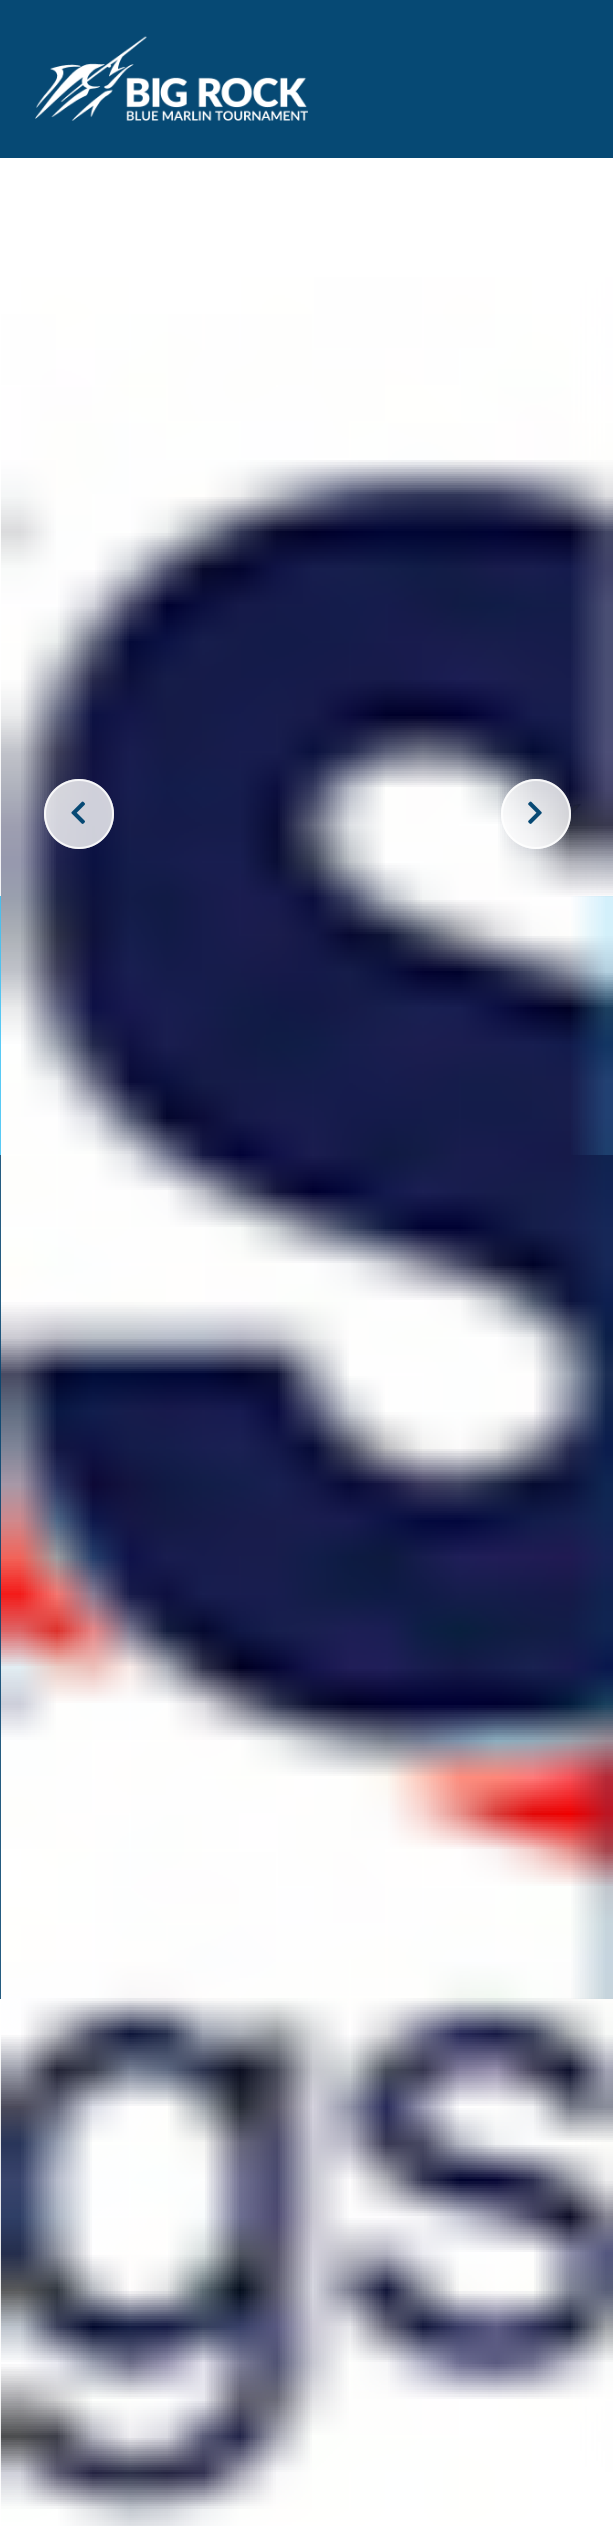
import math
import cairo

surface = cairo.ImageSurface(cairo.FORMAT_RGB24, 613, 2526)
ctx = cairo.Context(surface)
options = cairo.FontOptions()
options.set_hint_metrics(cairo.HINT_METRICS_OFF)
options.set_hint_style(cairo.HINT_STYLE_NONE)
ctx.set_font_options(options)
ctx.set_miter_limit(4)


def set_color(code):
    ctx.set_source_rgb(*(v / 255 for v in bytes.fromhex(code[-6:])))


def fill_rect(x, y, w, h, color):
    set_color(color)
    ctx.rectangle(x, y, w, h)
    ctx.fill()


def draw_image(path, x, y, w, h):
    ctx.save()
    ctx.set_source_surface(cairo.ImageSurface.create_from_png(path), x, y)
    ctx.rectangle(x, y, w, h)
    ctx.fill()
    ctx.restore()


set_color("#ffffff")
ctx.paint()
fill_rect(0, 0, 613, 158, "#064974")
draw_image("assets/img1.png", 35, 36, 273, 85)
draw_image("assets/img5.png", 571, 788, 10, 50)
fill_rect(0, 896, 613, 259, "#40c2f3")
fill_rect(0, 1155, 613, 844, "#06456f")
draw_image("assets/img2.png", 0, 158, 613, 2368)
ctx.set_source_rgba(1, 1, 1, 0.8)
ctx.arc(79, 814, 35, 0, 2 * math.pi)
ctx.fill()
ctx.arc(79, 814, 34, 0, 2 * math.pi)
ctx.stroke()
draw_image("assets/img3.png", 71, 801, 14, 23)
ctx.arc(536, 814, 35, 0, 2 * math.pi)
ctx.fill()
ctx.arc(536, 814, 34, 0, 2 * math.pi)
ctx.stroke()
draw_image("assets/img4.png", 528, 801, 14, 23)
surface.write_to_png("output.png")
